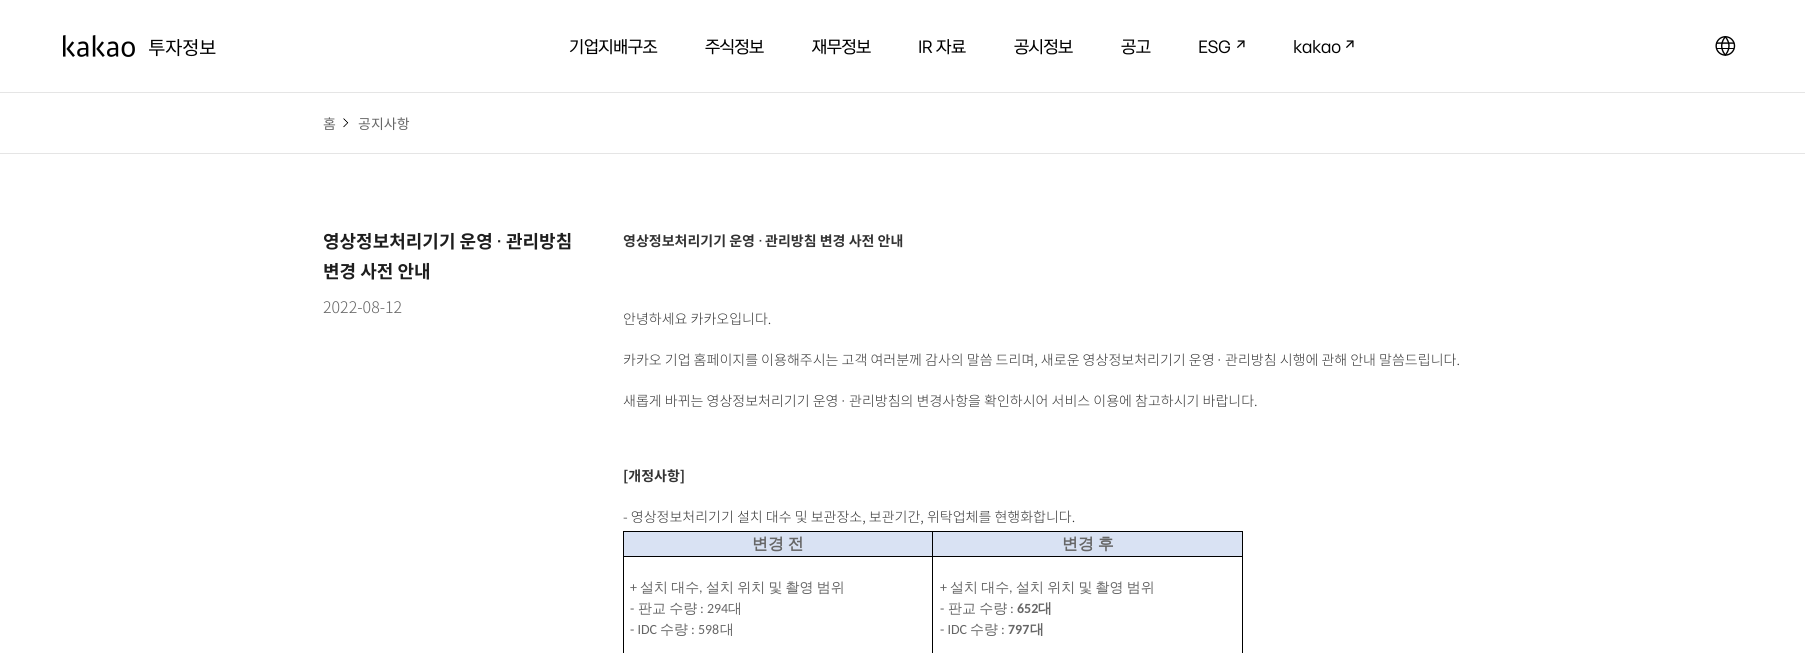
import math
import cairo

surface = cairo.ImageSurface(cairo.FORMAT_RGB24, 1805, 653)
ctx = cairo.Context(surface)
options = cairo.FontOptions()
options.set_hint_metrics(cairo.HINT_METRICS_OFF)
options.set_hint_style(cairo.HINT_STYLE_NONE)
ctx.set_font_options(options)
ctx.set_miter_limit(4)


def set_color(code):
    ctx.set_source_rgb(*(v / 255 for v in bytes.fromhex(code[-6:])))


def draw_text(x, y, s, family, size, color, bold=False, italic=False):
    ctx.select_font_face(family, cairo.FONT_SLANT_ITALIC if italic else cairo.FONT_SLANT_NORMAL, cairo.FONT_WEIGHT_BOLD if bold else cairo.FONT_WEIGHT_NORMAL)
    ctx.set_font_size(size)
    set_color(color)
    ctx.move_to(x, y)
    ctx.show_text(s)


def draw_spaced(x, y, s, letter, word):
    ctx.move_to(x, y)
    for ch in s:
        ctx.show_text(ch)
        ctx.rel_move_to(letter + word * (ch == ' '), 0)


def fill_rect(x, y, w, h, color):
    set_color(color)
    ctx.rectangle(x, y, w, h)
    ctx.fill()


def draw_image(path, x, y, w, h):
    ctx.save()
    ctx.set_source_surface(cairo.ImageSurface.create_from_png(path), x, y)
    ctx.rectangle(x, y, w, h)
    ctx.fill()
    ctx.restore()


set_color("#ffffff")
ctx.paint()
draw_image("assets/img1.png", 63, 35, 153, 22)
ctx.select_font_face("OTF")
ctx.set_font_size(17)
set_color("#000000")
draw_spaced(569, 53, "기업지배구조", -0.5, 0)
draw_spaced(705, 53, "주식정보", -0.5, 0)
draw_spaced(812, 53, "재무정보", -0.5, 0)
draw_spaced(918, 53, "IR 자료", -0.5, 0)
draw_spaced(1014, 53, "공시정보", -0.5, 0)
draw_spaced(1121, 53, "공고", -0.5, 0)
draw_spaced(1198, 53, "ESG", -0.5, 0)
draw_image("assets/img2.png", 1237, 40, 8, 8)
draw_spaced(1293, 53, "kakao", -0.5, 0)
draw_image("assets/img2.png", 1346, 40, 8, 8)
draw_image("assets/img3.png", 1715, 36, 21, 20)
fill_rect(0, 92, 1805, 1, "#e5e5e5")
fill_rect(0, 153, 1805, 1, "#e5e5e5")
draw_text(323, 129, "홈", "Noto Sans KR", 14, "#666666")
draw_image("assets/img4.png", 343, 118, 6, 10)
draw_text(358, 129, "공지사항", "Noto Sans KR", 14, "#666666")
draw_text(323, 248, "영상정보처리기기 운영", "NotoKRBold", 18, "#1e1e1e", bold=True)
draw_text(496, 248, "·", "Dotum", 18, "#1e1e1e", bold=True)
draw_text(506, 248, "관리방침", "NotoKRBold", 18, "#1e1e1e", bold=True)
draw_text(323, 278, "변경 사전 안내", "NotoKRBold", 18, "#1e1e1e", bold=True)
draw_text(323, 313, "2022-08-12", "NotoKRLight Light", 16, "#666666")
draw_text(623, 246, "영상정보처리기기 운영", "NotoKRBold", 14, "#333333", bold=True)
draw_text(758, 246, "·", "Dotum", 14, "#333333", bold=True)
draw_text(765, 246, "관리방침 변경 사전 안내", "NotoKRBold", 14, "#333333", bold=True)
draw_text(623, 324, "안녕하세요 카카오입니다.", "NotoKRLight Light", 14, "#333333")
draw_text(623, 365, "카카오 기업 홈페이지를 이용해주시는 고객 여러분께 감사의 말씀 드리며, 새로운 영상정보처리기기 운영", "NotoKRLight Light", 14, "#333333")
draw_text(1217, 365, "·", "Dotum", 14, "#333333")
draw_text(1225, 365, "관리방침 시행에 관해 안내 말씀드립니다.", "NotoKRLight Light", 14, "#333333")
draw_text(623, 406, "새롭게 바뀌는 영상정보처리기기 운영", "NotoKRLight Light", 14, "#333333")
draw_text(841, 406, "·", "Dotum", 14, "#333333")
draw_text(849, 406, "관리방침의 변경사항을 확인하시어 서비스 이용에 참고하시기 바랍니다.", "NotoKRLight Light", 14, "#333333")
draw_text(623, 481, "[개정사항]", "NotoKRBold", 14, "#333333", bold=True)
draw_text(623, 522, "- 영상정보처리기기 설치 대수 및 보관장소, 보관기간, 위탁업체를 현행화합니다.", "NotoKRLight Light", 14, "#333333")
fill_rect(624, 532, 308, 24, "#d9e2f3")
fill_rect(623, 531, 620, 1, "#000000")
fill_rect(1242, 556, 1, 97, "#000000")
fill_rect(1242, 531, 1, 26, "#000000")
fill_rect(932, 556, 1, 97, "#000000")
fill_rect(932, 556, 311, 1, "#000000")
fill_rect(932, 531, 1, 26, "#000000")
fill_rect(623, 556, 1, 97, "#000000")
fill_rect(623, 556, 310, 1, "#000000")
fill_rect(623, 531, 1, 26, "#000000")
ctx.select_font_face("WenQuanYi Zen Hei", cairo.FONT_SLANT_NORMAL, cairo.FONT_WEIGHT_BOLD)
ctx.set_font_size(16)
set_color("#666666")
draw_spaced(752, 549, "변경 전", 0, -1)
fill_rect(933, 532, 309, 24, "#d9e2f3")
set_color("#666666")
draw_spaced(1062, 549, "변경 후", 0, -1)
draw_text(630, 592, "+", "Carlito", 14, "#666666")
ctx.select_font_face("WenQuanYi Zen Hei Medium")
draw_spaced(640, 592, "설치 대수", 0, -1)
draw_spaced(706, 592, "설치 위치 및 촬영 범위", 0, -1)
draw_text(699, 592, ",", "Carlito", 14, "#666666")
draw_text(630, 613, "-", "Carlito", 14, "#666666")
ctx.select_font_face("WenQuanYi Zen Hei Medium")
draw_spaced(638, 613, "판교 수량", 0, -1)
draw_text(700, 613, ": 294", "Carlito", 14, "#666666")
draw_text(728, 613, "대", "WenQuanYi Zen Hei Medium", 14, "#666666")
draw_text(630, 634, "- IDC", "Carlito", 14, "#666666")
draw_text(660, 634, "수량", "WenQuanYi Zen Hei Medium", 14, "#666666")
draw_text(691, 634, ": 598", "Carlito", 14, "#666666")
draw_text(720, 634, "대", "WenQuanYi Zen Hei Medium", 14, "#666666")
draw_text(940, 592, "+", "Carlito", 14, "#666666")
ctx.select_font_face("WenQuanYi Zen Hei Medium")
draw_spaced(950, 592, "설치 대수", 0, -1)
draw_spaced(1016, 592, "설치 위치 및 촬영 범위", 0, -1)
draw_text(1009, 592, ",", "Carlito", 14, "#666666")
draw_text(940, 613, "-", "Carlito", 14, "#666666")
ctx.select_font_face("WenQuanYi Zen Hei Medium")
draw_spaced(948, 613, "판교 수량", 0, -1)
draw_text(1010, 613, ":", "Carlito", 14, "#666666")
draw_text(1017, 613, "652", "Carlito", 14, "#666666", bold=True)
draw_text(1038, 613, "대", "WenQuanYi Zen Hei", 14, "#666666", bold=True)
draw_text(940, 634, "- IDC", "Carlito", 14, "#666666")
draw_text(970, 634, "수량", "WenQuanYi Zen Hei Medium", 14, "#666666")
draw_text(1001, 634, ":", "Carlito", 14, "#666666")
draw_text(1008, 634, "797", "Carlito", 14, "#666666", bold=True)
draw_text(1030, 634, "대", "WenQuanYi Zen Hei", 14, "#666666", bold=True)
surface.write_to_png("output.png")
